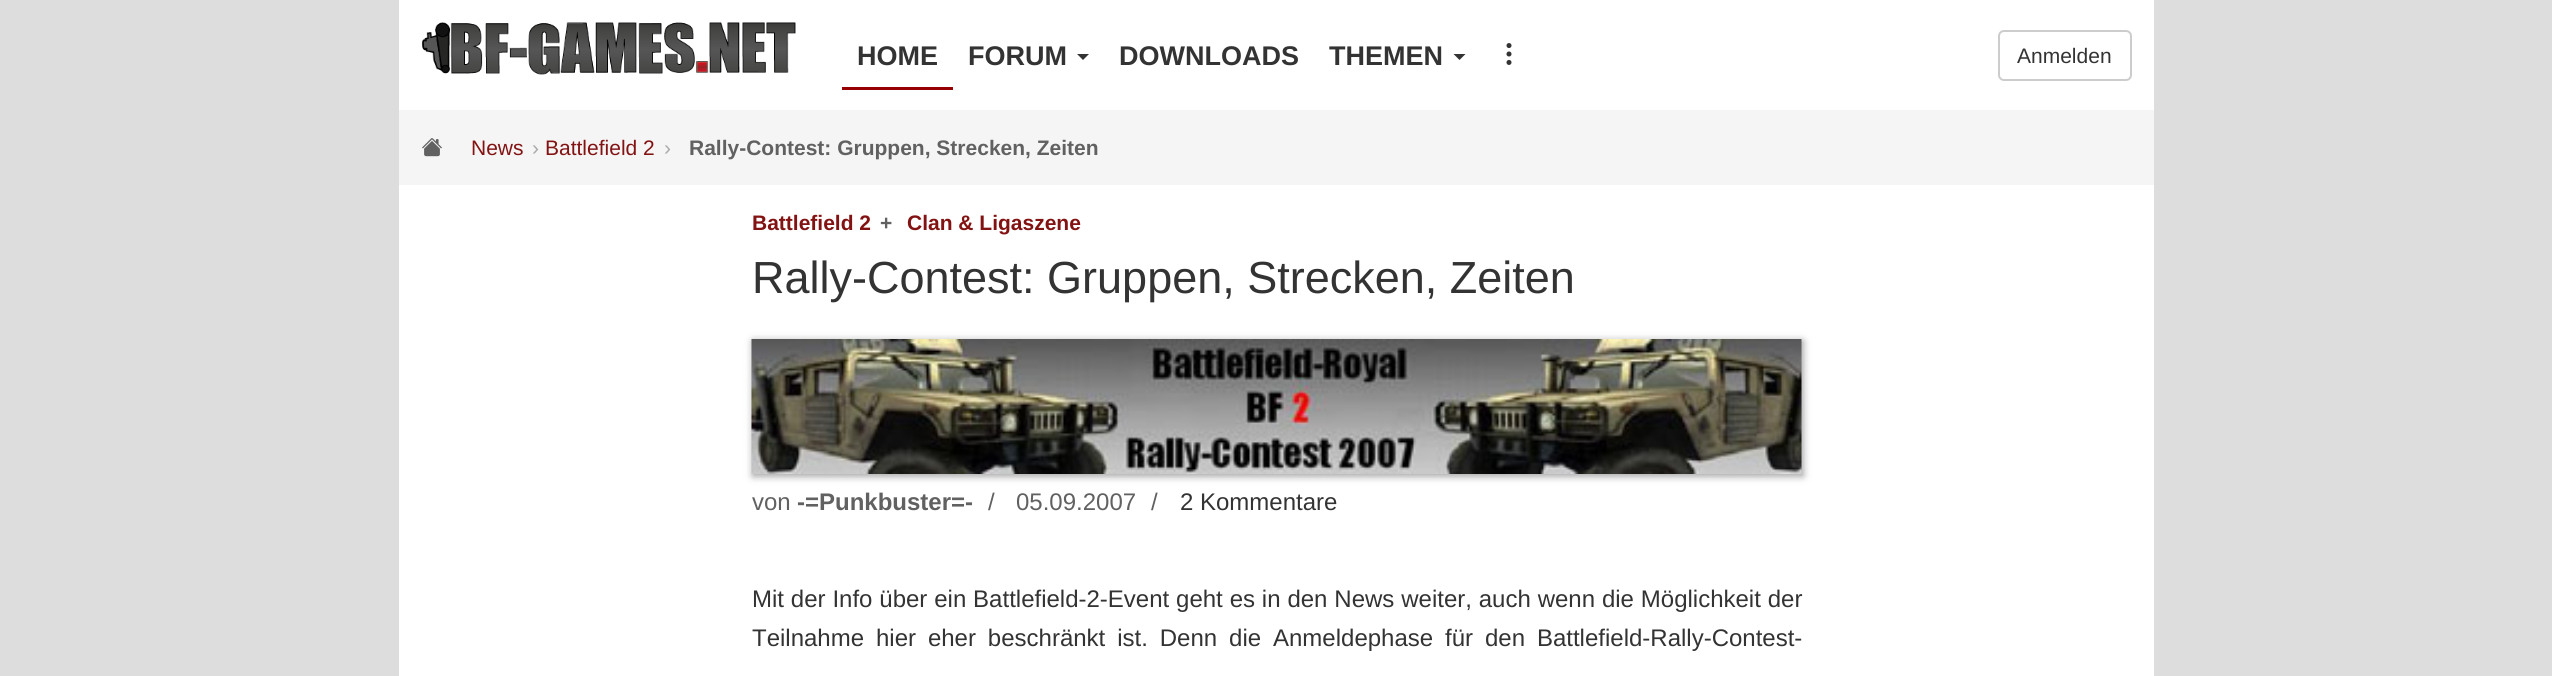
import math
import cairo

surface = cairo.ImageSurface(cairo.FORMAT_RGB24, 2552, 676)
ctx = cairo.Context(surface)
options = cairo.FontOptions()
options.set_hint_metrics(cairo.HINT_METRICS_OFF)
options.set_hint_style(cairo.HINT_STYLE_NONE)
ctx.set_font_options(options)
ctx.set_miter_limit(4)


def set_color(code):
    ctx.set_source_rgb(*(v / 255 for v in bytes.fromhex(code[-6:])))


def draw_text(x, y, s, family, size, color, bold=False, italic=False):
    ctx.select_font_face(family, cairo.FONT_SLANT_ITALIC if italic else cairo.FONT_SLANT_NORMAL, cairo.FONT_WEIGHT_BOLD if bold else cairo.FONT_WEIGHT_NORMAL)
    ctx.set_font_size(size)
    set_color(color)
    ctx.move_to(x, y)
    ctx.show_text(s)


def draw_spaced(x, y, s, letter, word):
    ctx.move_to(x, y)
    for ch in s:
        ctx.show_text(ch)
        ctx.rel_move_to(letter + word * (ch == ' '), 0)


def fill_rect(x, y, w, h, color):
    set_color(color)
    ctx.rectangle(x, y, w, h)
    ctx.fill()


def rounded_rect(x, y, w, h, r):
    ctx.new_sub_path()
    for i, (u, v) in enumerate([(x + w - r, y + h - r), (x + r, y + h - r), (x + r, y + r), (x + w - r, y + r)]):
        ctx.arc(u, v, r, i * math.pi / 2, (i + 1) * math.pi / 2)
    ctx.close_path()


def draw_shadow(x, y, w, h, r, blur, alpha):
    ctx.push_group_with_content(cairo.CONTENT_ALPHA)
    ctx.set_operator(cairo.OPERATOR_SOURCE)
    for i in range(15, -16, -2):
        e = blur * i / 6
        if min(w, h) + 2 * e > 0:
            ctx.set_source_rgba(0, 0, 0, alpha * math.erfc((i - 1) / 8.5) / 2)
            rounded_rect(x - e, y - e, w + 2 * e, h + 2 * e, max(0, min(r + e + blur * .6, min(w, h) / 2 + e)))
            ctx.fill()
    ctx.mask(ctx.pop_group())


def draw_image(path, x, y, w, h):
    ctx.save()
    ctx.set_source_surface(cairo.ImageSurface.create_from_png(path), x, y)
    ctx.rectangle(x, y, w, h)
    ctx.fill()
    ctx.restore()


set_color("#dddddd")
ctx.paint()
fill_rect(399, 0, 1755, 110, "#ffffff")
draw_image("assets/img1.png", 421, 22, 375, 53)
fill_rect(842, 87, 111, 3, "#960002")
draw_text(857, 65, "HOME", "Liberation Sans", 27, "#333333", bold=True)
draw_text(968, 65, "FORUM", "Liberation Sans", 27, "#333333", bold=True)
ctx.new_path()
ctx.move_to(1077, 54)
ctx.line_to(1089, 54)
ctx.line_to(1083, 60)
ctx.close_path()
ctx.fill()
draw_text(1119, 65, "DOWNLOADS", "Liberation Sans", 27, "#333333", bold=True)
draw_text(1329, 65, "THEMEN", "Liberation Sans", 27, "#333333", bold=True)
ctx.new_path()
ctx.move_to(1453.5, 54)
ctx.line_to(1465.5, 54)
ctx.line_to(1459.5, 60)
ctx.close_path()
ctx.fill()
draw_image("assets/img2.png", 1506, 43, 6, 22)
rounded_rect(1999, 31, 132, 49, 5)
set_color("#cccccc")
ctx.stroke()
draw_text(2017, 63, "Anmelden", "Liberation Sans", 21, "#333333")
fill_rect(399, 185, 1755, 491, "#ffffff")
fill_rect(399, 110, 1755, 75, "#f5f5f5")
draw_image("assets/img3.png", 422, 138, 20, 19)
draw_text(471, 155, "News", "Liberation Sans", 21, "#831313")
draw_text(532, 155, "›", "Liberation Sans", 21, "#aaaaaa")
draw_text(545, 155, "Battlefield 2", "Liberation Sans", 21, "#831313")
draw_text(664, 155, "›", "Liberation Sans", 21, "#aaaaaa")
draw_text(689, 155, "Rally-Contest: Gruppen, Strecken, Zeiten", "Liberation Sans", 21, "#616161", bold=True)
draw_text(752, 230, "Battlefield 2", "Liberation Sans", 21, "#831313", bold=True)
draw_text(880, 230, "+", "Liberation Sans", 21, "#616161", bold=True)
draw_text(907, 230, "Clan & Ligaszene", "Liberation Sans", 21, "#831313", bold=True)
draw_text(752, 293, "Rally-Contest: Gruppen, Strecken, Zeiten", "Liberation Sans", 45, "#333333")
set_color("#000000")
draw_shadow(753, 341, 1050, 135, 0, 4, 0.4)
draw_image("assets/img4.png", 751, 339, 1051, 135)
draw_text(752, 510, "von", "Liberation Sans", 24, "#616161")
draw_text(797, 510, "-=Punkbuster=-", "Liberation Sans", 24, "#616161", bold=True)
draw_text(988, 510, "/", "Liberation Sans", 24, "#616161")
draw_text(1016, 510, "05.09.2007", "Liberation Sans", 24, "#616161")
draw_text(1151, 510, "/", "Liberation Sans", 24, "#616161")
draw_text(1180, 510, "2 Kommentare", "Liberation Sans", 24, "#333333")
draw_spaced(752, 607, "Mit der Info über ein Battlefield-2-Event geht es in den News weiter, auch wenn die Möglichkeit der", 0, 0.2)
draw_spaced(752, 646, "Teilnahme hier eher beschränkt ist. Denn die Anmeldephase für den Battlefield-Rally-Contest-", 0, 5.25)
surface.write_to_png("output.png")
